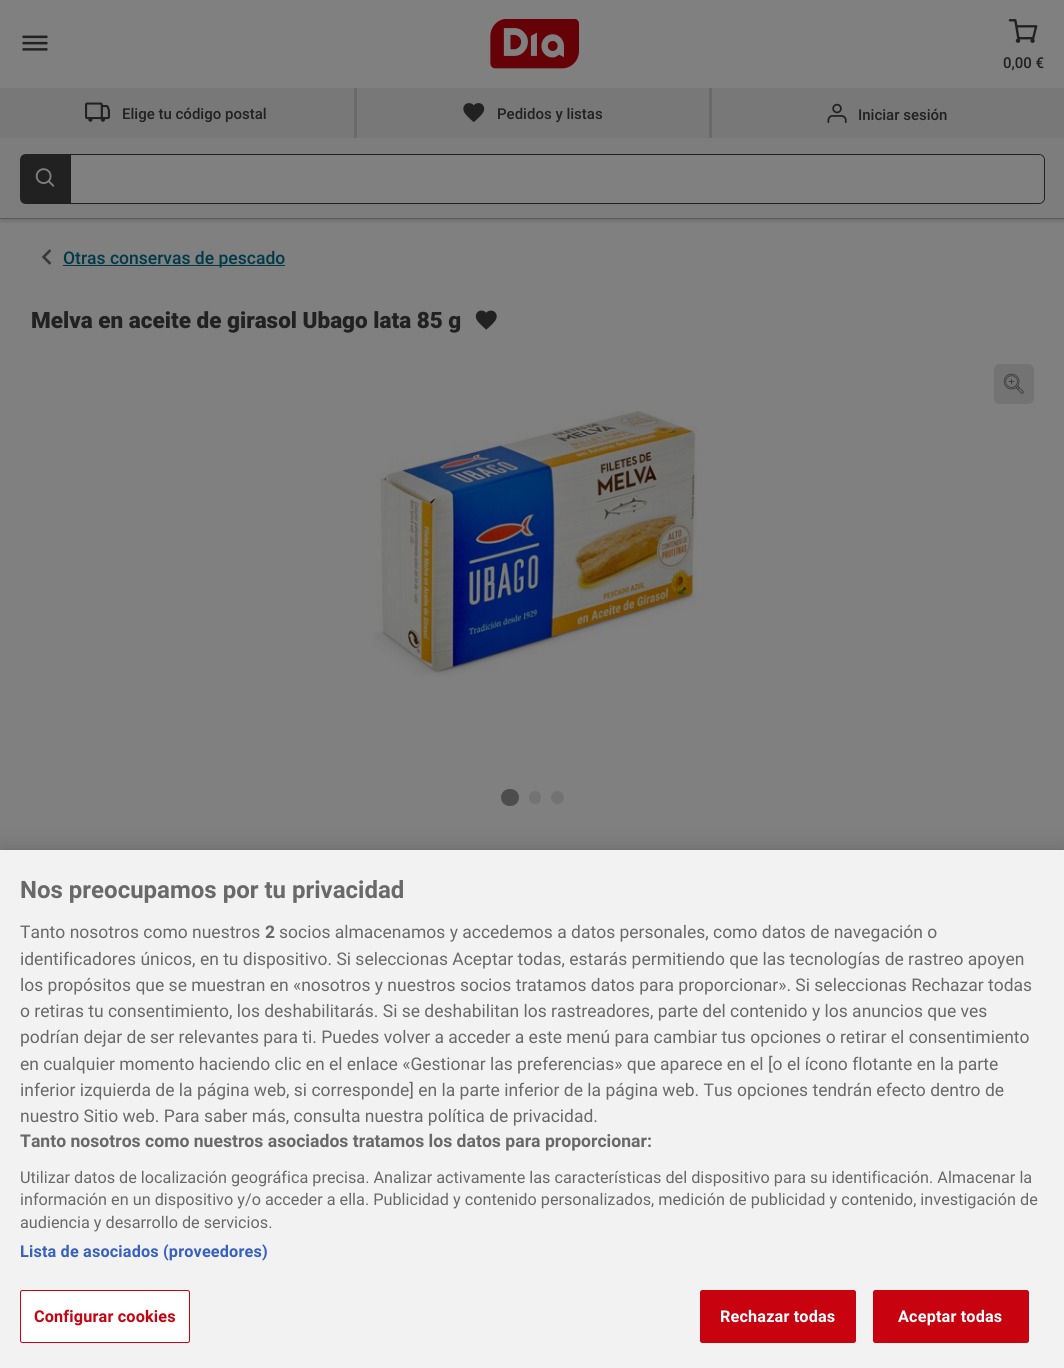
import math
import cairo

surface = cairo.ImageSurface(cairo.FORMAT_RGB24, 1064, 1368)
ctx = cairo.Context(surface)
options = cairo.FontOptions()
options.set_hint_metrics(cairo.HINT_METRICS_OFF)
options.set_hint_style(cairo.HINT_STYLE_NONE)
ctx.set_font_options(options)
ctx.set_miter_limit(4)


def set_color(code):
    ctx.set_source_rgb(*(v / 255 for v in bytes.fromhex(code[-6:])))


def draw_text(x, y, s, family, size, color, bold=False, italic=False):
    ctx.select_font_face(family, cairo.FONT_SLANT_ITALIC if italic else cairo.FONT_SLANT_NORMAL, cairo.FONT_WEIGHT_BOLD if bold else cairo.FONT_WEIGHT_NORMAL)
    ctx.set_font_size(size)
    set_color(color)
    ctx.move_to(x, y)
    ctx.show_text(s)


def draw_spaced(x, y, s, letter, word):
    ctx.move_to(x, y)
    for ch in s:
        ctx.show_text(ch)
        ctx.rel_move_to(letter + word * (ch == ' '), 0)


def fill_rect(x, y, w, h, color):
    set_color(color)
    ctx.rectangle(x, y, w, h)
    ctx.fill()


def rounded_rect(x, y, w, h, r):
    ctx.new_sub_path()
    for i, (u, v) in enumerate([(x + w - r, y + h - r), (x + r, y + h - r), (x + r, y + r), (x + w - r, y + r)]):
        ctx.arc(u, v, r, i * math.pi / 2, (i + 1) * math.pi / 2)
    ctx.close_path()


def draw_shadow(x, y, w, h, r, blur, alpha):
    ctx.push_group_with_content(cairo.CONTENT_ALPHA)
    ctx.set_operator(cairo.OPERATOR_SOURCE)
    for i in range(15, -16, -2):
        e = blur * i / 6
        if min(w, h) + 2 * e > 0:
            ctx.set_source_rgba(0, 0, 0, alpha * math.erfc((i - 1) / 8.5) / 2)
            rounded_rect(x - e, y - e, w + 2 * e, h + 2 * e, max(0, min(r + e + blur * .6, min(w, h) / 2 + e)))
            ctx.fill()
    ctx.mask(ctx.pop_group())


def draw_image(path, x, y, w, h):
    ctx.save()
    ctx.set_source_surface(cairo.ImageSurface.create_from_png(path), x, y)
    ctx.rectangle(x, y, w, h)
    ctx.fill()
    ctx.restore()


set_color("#808080")
ctx.paint()
fill_rect(0, 218, 1064, 1, "#676767")
draw_image("assets/img1.png", 22, 35, 26, 16)
draw_image("assets/img2.png", 490, 19, 89, 50)
draw_image("assets/img3.png", 1008, 19, 30, 24)
draw_text(1003, 68, "0,00 €", "Roboto Medium", 15, "#212121")
fill_rect(0, 88, 1064, 50, "#787878")
draw_image("assets/img4.png", 85, 102, 25, 20)
draw_text(122, 119, "Elige tu código postal", "Roboto Medium", 15, "#212121")
fill_rect(354, 88, 3, 50, "#6a6a6a")
draw_image("assets/img5.png", 463, 103, 22, 20)
draw_text(497, 119, "Pedidos y listas", "Roboto Medium", 15, "#212121")
fill_rect(709, 88, 3, 51, "#6a6a6a")
draw_image("assets/img6.png", 827, 103, 20, 20)
draw_text(858, 120, "Iniciar sesión", "Roboto Medium", 15, "#212121")
set_color("#000000")
draw_shadow(0, 141, 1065, 80, 0, 2, 0.15)
fill_rect(0, 138, 1064, 80, "#7d7d7d")
set_color("#212121")
ctx.new_path()
ctx.move_to(26, 154)
ctx.line_to(70, 154)
ctx.line_to(70, 204)
ctx.line_to(26, 204)
ctx.curve_to(22.5, 204, 20, 201.5, 20, 198)
ctx.line_to(20, 160)
ctx.curve_to(20, 156.5, 22.5, 154, 26, 154)
ctx.close_path()
ctx.fill()
draw_image("assets/img7.png", 35, 168, 20, 19)
set_color("#808080")
ctx.new_path()
ctx.move_to(70.5, 154.5)
ctx.line_to(1039, 154.5)
ctx.curve_to(1042, 154.5, 1044.5, 157, 1044.5, 160)
ctx.line_to(1044.5, 198)
ctx.curve_to(1044.5, 201, 1042, 203.5, 1039, 203.5)
ctx.line_to(70.5, 203.5)
ctx.close_path()
ctx.fill_preserve()
set_color("#212121")
ctx.set_line_width(1)
ctx.stroke()
set_color("#808080")
ctx.new_path()
ctx.move_to(71, 155)
ctx.line_to(1038, 155)
ctx.curve_to(1041.5, 155, 1044, 157.5, 1044, 161)
ctx.line_to(1044, 197)
ctx.curve_to(1044, 200.5, 1041.5, 203, 1038, 203)
ctx.line_to(71, 203)
ctx.close_path()
ctx.fill()
draw_image("assets/img8.png", 41, 249, 11, 16)
fill_rect(63, 265, 222, 1, "#003a49")
draw_text(63, 264, "Otras conservas de pescado", "Roboto Medium", 17.5, "#003a49")
draw_text(31, 328, "Melva en aceite de girasol Ubago lata 85 g", "Roboto Black", 22.5, "#212121")
draw_image("assets/img9.png", 475, 310, 22, 20)
set_color("#737373")
rounded_rect(994, 364, 40, 40, 6)
ctx.fill()
draw_image("assets/img10.png", 1003, 373, 21, 21)
draw_image("assets/img11.png", 372, 411, 325, 266)
set_color("#4d4d4d")
rounded_rect(501, 789, 18, 17, 8.5)
ctx.fill()
set_color("#737373")
rounded_rect(529, 791, 12, 13, 6)
ctx.fill()
ctx.arc(557.5, 797.5, 6.5, 0, 2 * math.pi)
ctx.fill()
set_color("#000000")
draw_shadow(0, 850, 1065, 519, 0, 11, 0.2)
fill_rect(0, 850, 1064, 518, "#f2f2f2")
draw_text(20, 898, "Nos preocupamos por tu privacidad", "Roboto", 24, "#696969", bold=True)
draw_text(20, 938, "Tanto nosotros como nuestros", "Roboto", 17.5, "#696969")
draw_text(265, 938, "2", "Roboto", 17.5, "#696969", bold=True)
draw_text(279, 938, "socios almacenamos y accedemos a datos personales, como datos de navegación o", "Roboto", 17.5, "#696969")
draw_text(20, 965, "identificadores únicos, en tu dispositivo. Si seleccionas Aceptar todas, estarás permitiendo que las tecnologías de rastreo apoyen", "Roboto", 17.5, "#696969")
draw_text(20, 991, "los propósitos que se muestran en «nosotros y nuestros socios tratamos datos para proporcionar». Si seleccionas Rechazar todas", "Roboto", 17.5, "#696969")
draw_text(20, 1017, "o retiras tu consentimiento, los deshabilitarás. Si se deshabilitan los rastreadores, parte del contenido y los anuncios que ves", "Roboto", 17.5, "#696969")
draw_text(20, 1043, "podrían dejar de ser relevantes para ti. Puedes volver a acceder a este menú para cambiar tus opciones o retirar el consentimiento", "Roboto", 17.5, "#696969")
draw_text(20, 1070, "en cualquier momento haciendo clic en el enlace «Gestionar las preferencias» que aparece en el [o el ícono flotante en la parte", "Roboto", 17.5, "#696969")
draw_text(20, 1096, "inferior izquierda de la página web, si corresponde] en la parte inferior de la página web. Tus opciones tendrán efecto dentro de", "Roboto", 17.5, "#696969")
draw_text(20, 1122, "nuestro Sitio web. Para saber más, consulta nuestra política de privacidad.", "Roboto", 17.5, "#696969")
draw_text(20, 1147, "Tanto nosotros como nuestros asociados tratamos los datos para proporcionar:", "Roboto", 17.6, "#696969", bold=True)
draw_text(20, 1183, "Utilizar datos de localización geográfica precisa. Analizar activamente las características del dispositivo para su identificación. Almacenar la", "Roboto", 16.25, "#696969")
draw_text(20, 1205, "información en un dispositivo y/o acceder a ella. Publicidad y contenido personalizados, medición de publicidad y contenido, investigación de", "Roboto", 16.25, "#696969")
draw_text(20, 1228, "audiencia y desarrollo de servicios.", "Roboto", 16.25, "#696969")
ctx.select_font_face("Roboto", cairo.FONT_SLANT_NORMAL, cairo.FONT_WEIGHT_BOLD)
set_color("#3860be")
draw_spaced(20, 1257, "Lista de asociados (proveedores)", 0.15, 0)
set_color("#ffffff")
rounded_rect(20.5, 1290.5, 169, 52, 2)
ctx.fill_preserve()
set_color("#c8030f")
ctx.stroke()
draw_spaced(34, 1322, "Configurar cookies", 0.15, 0)
rounded_rect(700.5, 1290.5, 155, 52, 2)
ctx.fill_preserve()
ctx.stroke()
set_color("#ffffff")
draw_spaced(720, 1322, "Rechazar todas", 0.15, 0)
set_color("#c8030f")
rounded_rect(873.5, 1290.5, 155, 52, 2)
ctx.fill_preserve()
ctx.stroke()
set_color("#ffffff")
draw_spaced(898, 1322, "Aceptar todas", 0.15, 0)
surface.write_to_png("output.png")
